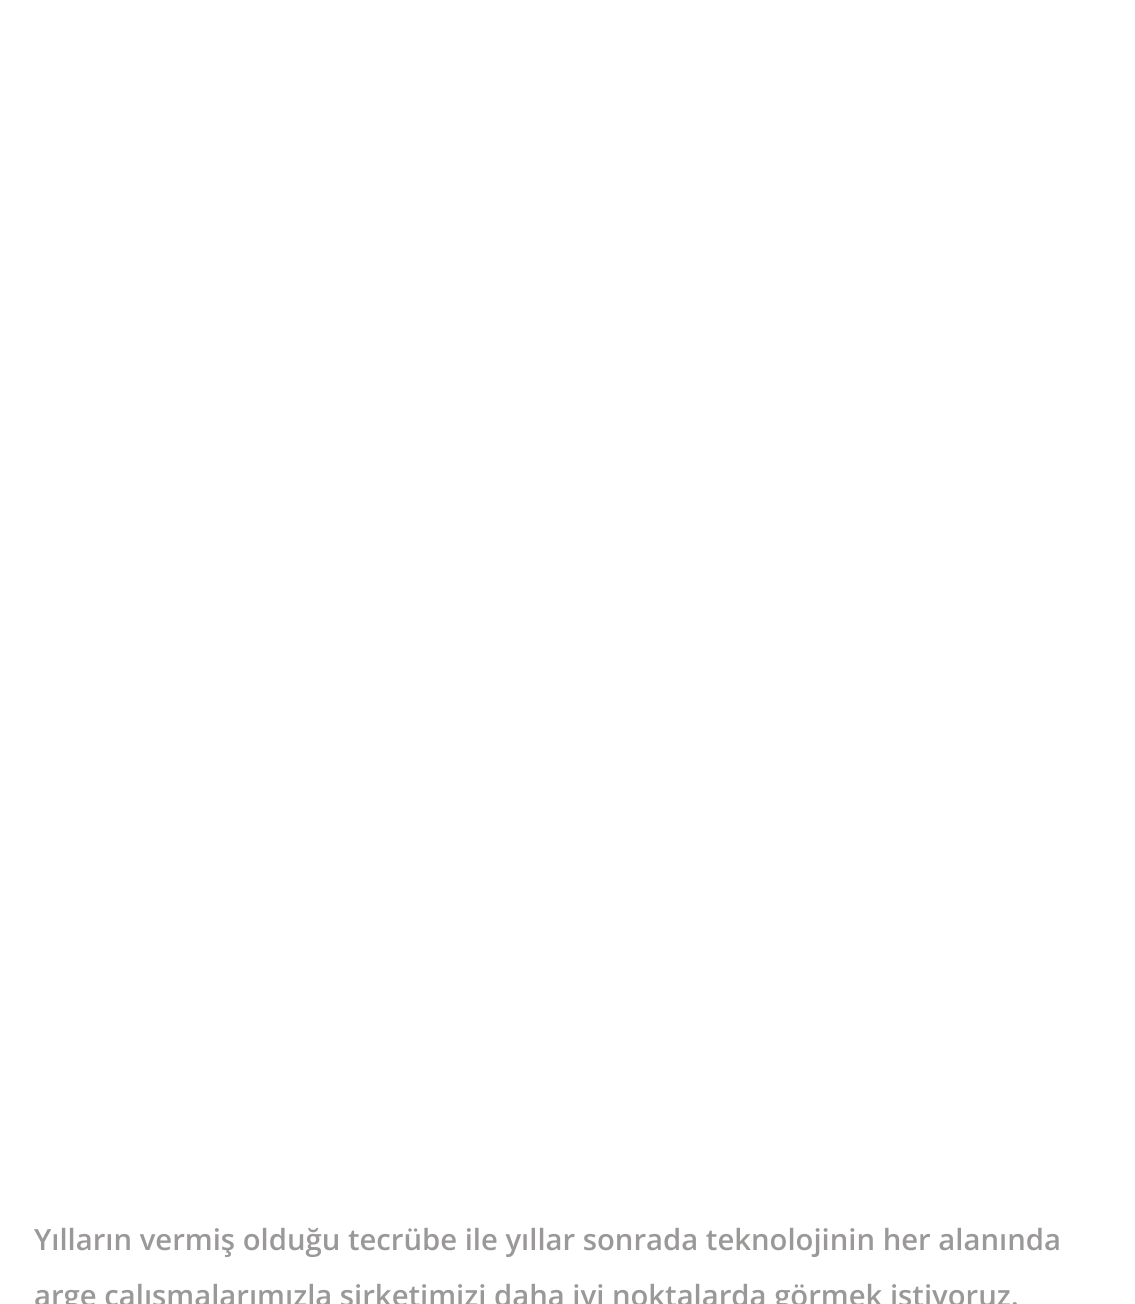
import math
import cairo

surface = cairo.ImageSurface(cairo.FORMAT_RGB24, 1135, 1304)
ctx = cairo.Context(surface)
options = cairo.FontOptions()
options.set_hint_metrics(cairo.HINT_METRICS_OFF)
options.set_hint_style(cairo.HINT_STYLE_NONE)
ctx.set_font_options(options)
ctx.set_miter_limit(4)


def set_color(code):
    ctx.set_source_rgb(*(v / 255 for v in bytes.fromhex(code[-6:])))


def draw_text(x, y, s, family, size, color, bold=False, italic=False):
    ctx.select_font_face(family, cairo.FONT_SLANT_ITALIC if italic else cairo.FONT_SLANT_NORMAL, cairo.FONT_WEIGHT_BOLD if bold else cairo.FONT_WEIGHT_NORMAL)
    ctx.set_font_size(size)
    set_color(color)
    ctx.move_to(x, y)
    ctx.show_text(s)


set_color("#ffffff")
ctx.paint()
draw_text(34, 1250, "Yılların vermiş olduğu tecrübe ile yıllar sonrada teknolojinin her alanında", "Open Sans SemiBold", 29.25, "#9b9898")
draw_text(34, 1306, "arge çalışmalarımızla şirketimizi daha iyi noktalarda görmek istiyoruz.", "Open Sans SemiBold", 29.25, "#9b9898")
surface.write_to_png("output.png")
